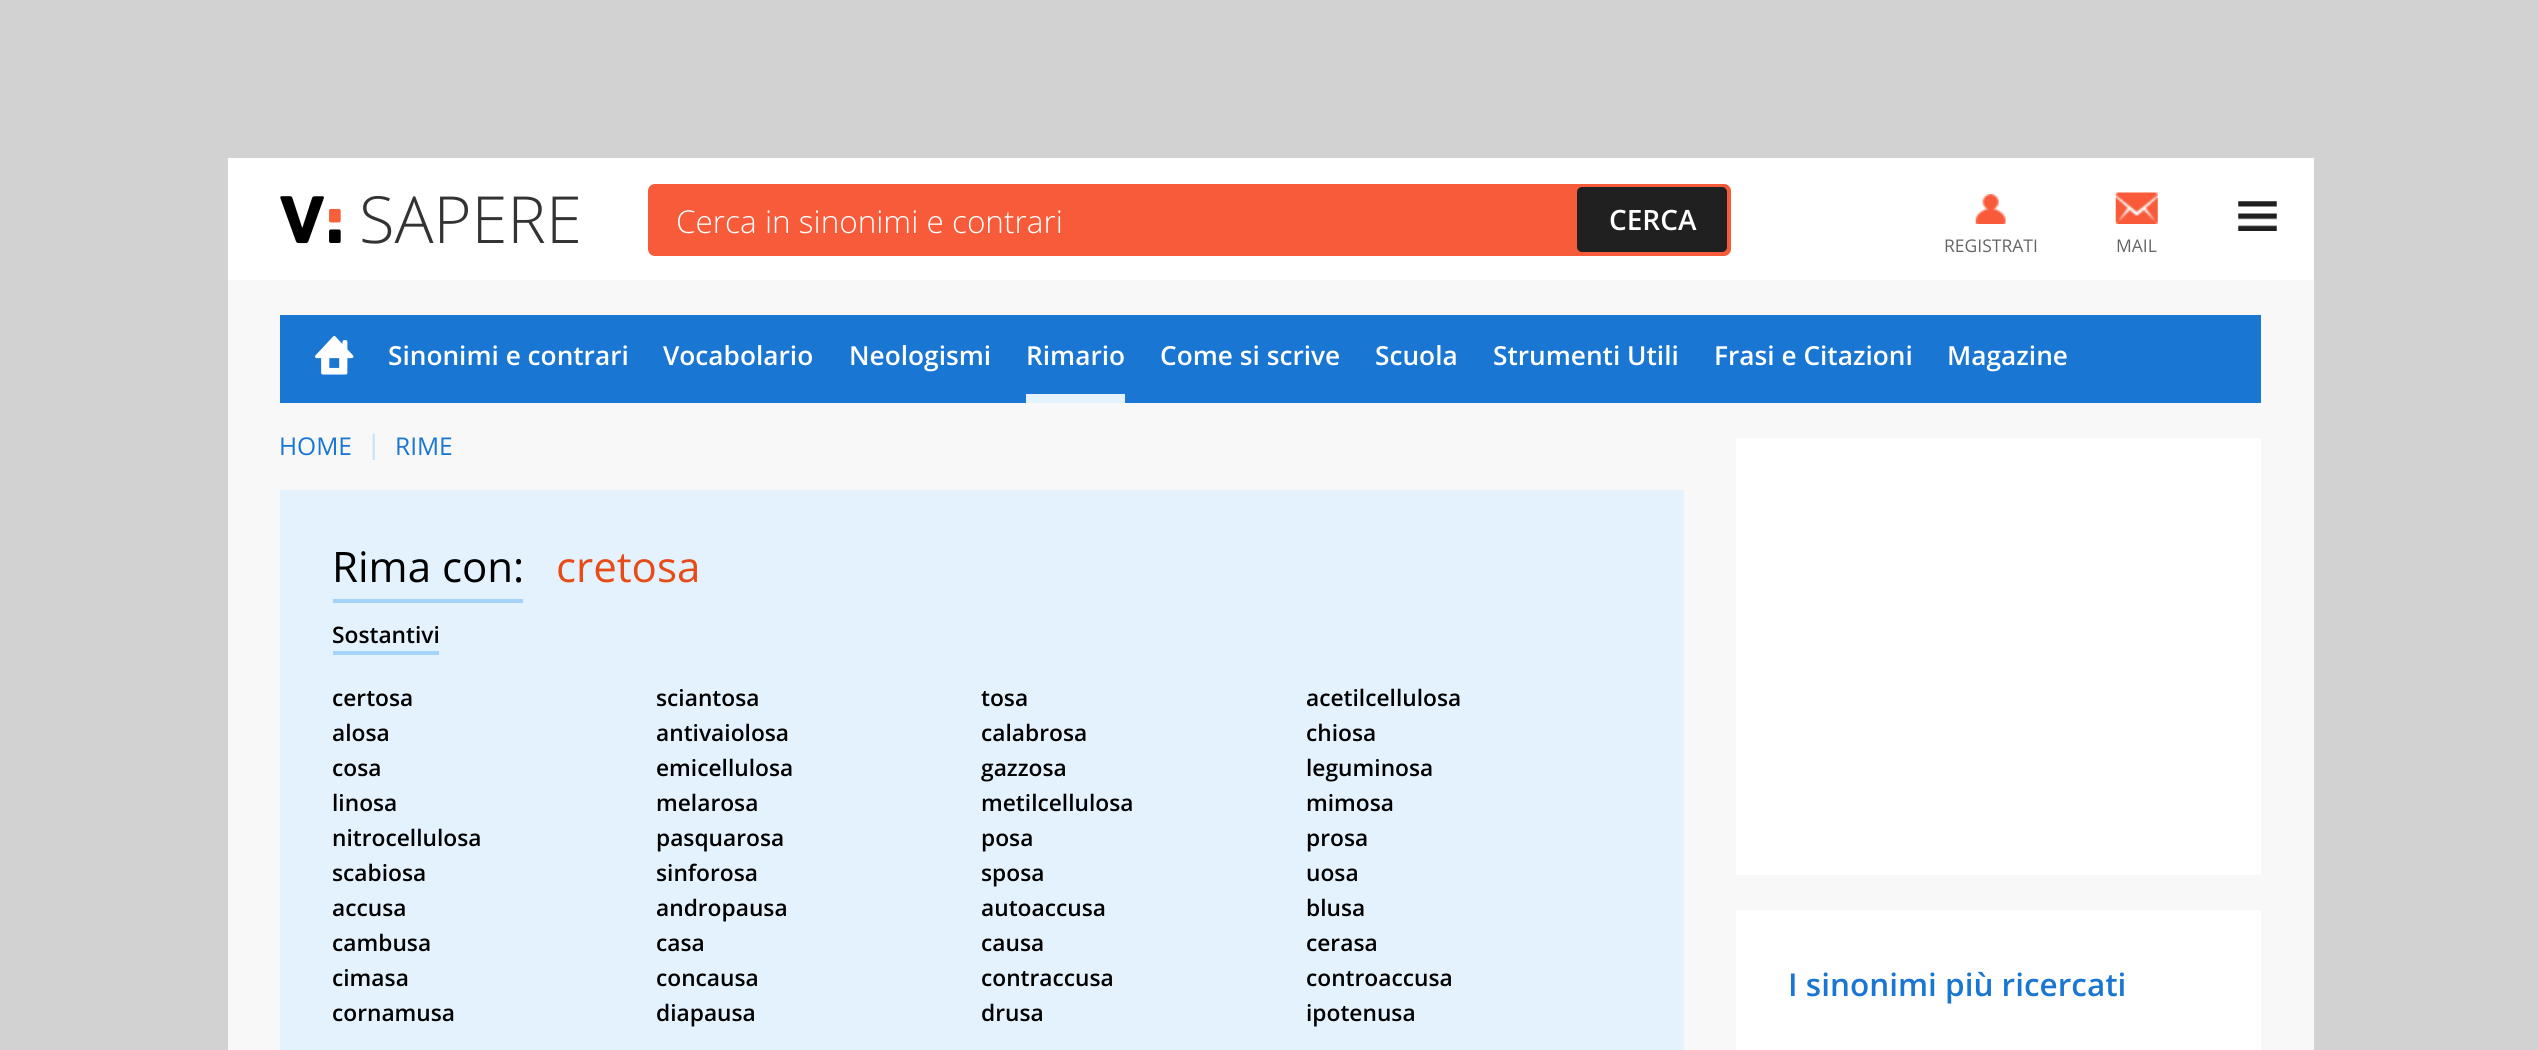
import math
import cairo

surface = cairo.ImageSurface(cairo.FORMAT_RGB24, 2538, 1050)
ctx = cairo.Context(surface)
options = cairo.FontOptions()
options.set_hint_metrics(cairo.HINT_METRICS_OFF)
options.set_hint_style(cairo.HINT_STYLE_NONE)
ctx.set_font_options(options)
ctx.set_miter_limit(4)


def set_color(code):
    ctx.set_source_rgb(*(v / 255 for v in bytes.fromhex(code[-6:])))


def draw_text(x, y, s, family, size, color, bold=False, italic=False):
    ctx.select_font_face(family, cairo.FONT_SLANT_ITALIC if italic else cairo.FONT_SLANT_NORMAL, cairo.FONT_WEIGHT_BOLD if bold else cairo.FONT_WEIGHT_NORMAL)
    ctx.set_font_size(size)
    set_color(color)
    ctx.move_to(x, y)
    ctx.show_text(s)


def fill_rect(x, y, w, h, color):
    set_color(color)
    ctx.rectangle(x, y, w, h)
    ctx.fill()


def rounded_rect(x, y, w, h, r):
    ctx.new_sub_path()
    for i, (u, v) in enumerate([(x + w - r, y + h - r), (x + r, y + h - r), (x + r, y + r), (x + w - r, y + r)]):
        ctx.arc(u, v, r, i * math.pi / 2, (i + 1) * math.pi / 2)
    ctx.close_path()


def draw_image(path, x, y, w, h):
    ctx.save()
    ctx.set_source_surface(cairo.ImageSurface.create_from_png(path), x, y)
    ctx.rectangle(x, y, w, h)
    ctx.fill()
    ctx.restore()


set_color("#d2d2d2")
ctx.paint()
fill_rect(228, 158, 2086, 122, "#ffffff")
draw_image("assets/img1.png", 280, 196, 61, 48)
draw_text(359, 243, "SAPERE", "Open Sans Light", 65, "#333333")
set_color("#f85b3a")
rounded_rect(648, 184, 1083, 72, 7)
ctx.fill()
draw_text(676, 233, "Cerca in sinonimi e contrari", "Open Sans Light", 31.5, "#ffffff")
set_color("#202020")
rounded_rect(1577, 187, 150, 65, 5)
ctx.fill()
draw_text(1609, 230, "CERCA", "Open Sans SemiBold", 28, "#ffffff")
draw_image("assets/img2.png", 2238, 201, 39, 30)
draw_image("assets/img3.png", 1975, 194, 31, 30)
draw_text(1944, 252, "REGISTRATI", "Open Sans", 17.5, "#666666")
draw_image("assets/img4.png", 2115, 192, 43, 32)
draw_text(2116, 252, "MAIL", "Open Sans", 17.5, "#666666")
fill_rect(228, 280, 2086, 770, "#f8f8f8")
fill_rect(280, 315, 1981, 88, "#1976d2")
draw_image("assets/img5.png", 315, 336, 39, 39)
draw_text(388, 365, "Sinonimi e contrari", "Open Sans SemiBold", 26.25, "#ffffff")
draw_text(663, 365, "Vocabolario", "Open Sans SemiBold", 26.25, "#ffffff")
draw_text(849, 365, "Neologismi", "Open Sans SemiBold", 26.25, "#ffffff")
fill_rect(1026, 394, 99, 9, "#e4f2fd")
draw_text(1026, 365, "Rimario", "Open Sans SemiBold", 26.25, "#ffffff")
draw_text(1160, 365, "Come si scrive", "Open Sans SemiBold", 26.25, "#ffffff")
draw_text(1375, 365, "Scuola", "Open Sans SemiBold", 26.25, "#ffffff")
draw_text(1493, 365, "Strumenti Utili", "Open Sans SemiBold", 26.25, "#ffffff")
draw_text(1714, 365, "Frasi e Citazioni", "Open Sans SemiBold", 26.25, "#ffffff")
draw_text(1947, 365, "Magazine", "Open Sans SemiBold", 26.25, "#ffffff")
draw_text(279, 455, "HOME", "Open Sans", 24.5, "#1976d2")
ctx.save()
ctx.rectangle(352, 432, 101, 28)
ctx.clip()
draw_text(366, 455, "|", "Open Sans", 28, "#c1e1fc")
ctx.restore()
draw_text(395, 455, "RIME", "Open Sans", 24.5, "#1976d2")
fill_rect(280, 490, 1404, 560, "#e4f2fd")
draw_text(332, 582, "Rima con:", "Open Sans", 42, "#000000")
fill_rect(333, 599, 190, 4, "#a5d4fa")
draw_text(556, 582, "cretosa", "Open Sans", 42, "#e74b18")
fill_rect(333, 651, 106, 4, "#a5d4fa")
draw_text(332, 643, "Sostantivi", "Open Sans SemiBold", 22.75, "#000000")
draw_text(332, 706, "certosa", "Open Sans SemiBold", 22.75, "#000000")
draw_text(656, 706, "sciantosa", "Open Sans SemiBold", 22.75, "#000000")
draw_text(981, 706, "tosa", "Open Sans SemiBold", 22.75, "#000000")
draw_text(1306, 706, "acetilcellulosa", "Open Sans SemiBold", 22.75, "#000000")
draw_text(332, 741, "alosa", "Open Sans SemiBold", 22.75, "#000000")
draw_text(656, 741, "antivaiolosa", "Open Sans SemiBold", 22.75, "#000000")
draw_text(981, 741, "calabrosa", "Open Sans SemiBold", 22.75, "#000000")
draw_text(1306, 741, "chiosa", "Open Sans SemiBold", 22.75, "#000000")
draw_text(332, 776, "cosa", "Open Sans SemiBold", 22.75, "#000000")
draw_text(656, 776, "emicellulosa", "Open Sans SemiBold", 22.75, "#000000")
draw_text(981, 776, "gazzosa", "Open Sans SemiBold", 22.75, "#000000")
draw_text(1306, 776, "leguminosa", "Open Sans SemiBold", 22.75, "#000000")
draw_text(332, 811, "linosa", "Open Sans SemiBold", 22.75, "#000000")
draw_text(656, 811, "melarosa", "Open Sans SemiBold", 22.75, "#000000")
draw_text(981, 811, "metilcellulosa", "Open Sans SemiBold", 22.75, "#000000")
draw_text(1306, 811, "mimosa", "Open Sans SemiBold", 22.75, "#000000")
draw_text(332, 846, "nitrocellulosa", "Open Sans SemiBold", 22.75, "#000000")
draw_text(656, 846, "pasquarosa", "Open Sans SemiBold", 22.75, "#000000")
draw_text(981, 846, "posa", "Open Sans SemiBold", 22.75, "#000000")
draw_text(1306, 846, "prosa", "Open Sans SemiBold", 22.75, "#000000")
draw_text(332, 881, "scabiosa", "Open Sans SemiBold", 22.75, "#000000")
draw_text(656, 881, "sinforosa", "Open Sans SemiBold", 22.75, "#000000")
draw_text(981, 881, "sposa", "Open Sans SemiBold", 22.75, "#000000")
draw_text(1306, 881, "uosa", "Open Sans SemiBold", 22.75, "#000000")
draw_text(332, 916, "accusa", "Open Sans SemiBold", 22.75, "#000000")
draw_text(656, 916, "andropausa", "Open Sans SemiBold", 22.75, "#000000")
draw_text(981, 916, "autoaccusa", "Open Sans SemiBold", 22.75, "#000000")
draw_text(1306, 916, "blusa", "Open Sans SemiBold", 22.75, "#000000")
draw_text(332, 951, "cambusa", "Open Sans SemiBold", 22.75, "#000000")
draw_text(656, 951, "casa", "Open Sans SemiBold", 22.75, "#000000")
draw_text(981, 951, "causa", "Open Sans SemiBold", 22.75, "#000000")
draw_text(1306, 951, "cerasa", "Open Sans SemiBold", 22.75, "#000000")
draw_text(332, 986, "cimasa", "Open Sans SemiBold", 22.75, "#000000")
draw_text(656, 986, "concausa", "Open Sans SemiBold", 22.75, "#000000")
draw_text(981, 986, "contraccusa", "Open Sans SemiBold", 22.75, "#000000")
draw_text(1306, 986, "controaccusa", "Open Sans SemiBold", 22.75, "#000000")
draw_text(332, 1021, "cornamusa", "Open Sans SemiBold", 22.75, "#000000")
draw_text(656, 1021, "diapausa", "Open Sans SemiBold", 22.75, "#000000")
draw_text(981, 1021, "drusa", "Open Sans SemiBold", 22.75, "#000000")
draw_text(1306, 1021, "ipotenusa", "Open Sans SemiBold", 22.75, "#000000")
fill_rect(1736, 438, 525, 437, "#ffffff")
fill_rect(1736, 910, 525, 140, "#ffffff")
draw_text(1788, 996, "I sinonimi più ricercati", "Open Sans SemiBold", 31.5, "#1976d2")
surface.write_to_png("output.png")
